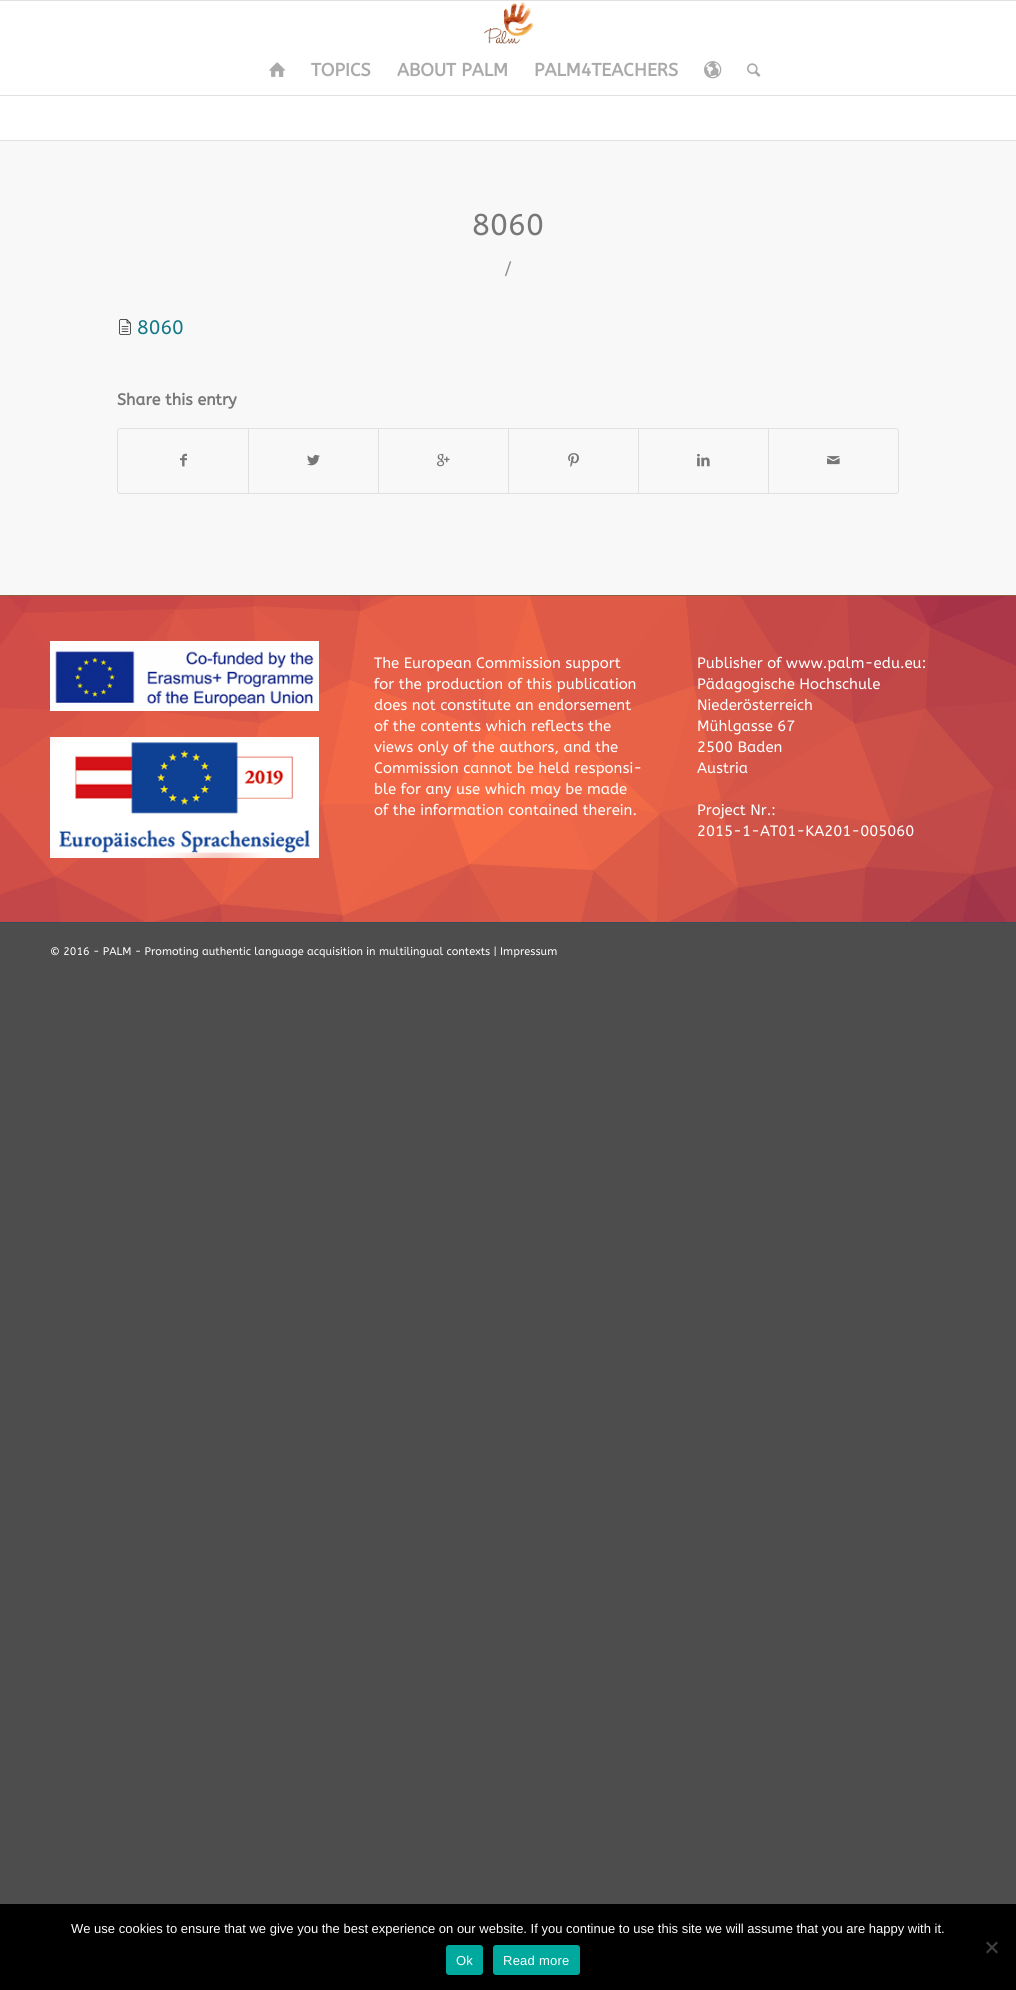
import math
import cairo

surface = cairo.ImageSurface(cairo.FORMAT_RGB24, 1016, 1990)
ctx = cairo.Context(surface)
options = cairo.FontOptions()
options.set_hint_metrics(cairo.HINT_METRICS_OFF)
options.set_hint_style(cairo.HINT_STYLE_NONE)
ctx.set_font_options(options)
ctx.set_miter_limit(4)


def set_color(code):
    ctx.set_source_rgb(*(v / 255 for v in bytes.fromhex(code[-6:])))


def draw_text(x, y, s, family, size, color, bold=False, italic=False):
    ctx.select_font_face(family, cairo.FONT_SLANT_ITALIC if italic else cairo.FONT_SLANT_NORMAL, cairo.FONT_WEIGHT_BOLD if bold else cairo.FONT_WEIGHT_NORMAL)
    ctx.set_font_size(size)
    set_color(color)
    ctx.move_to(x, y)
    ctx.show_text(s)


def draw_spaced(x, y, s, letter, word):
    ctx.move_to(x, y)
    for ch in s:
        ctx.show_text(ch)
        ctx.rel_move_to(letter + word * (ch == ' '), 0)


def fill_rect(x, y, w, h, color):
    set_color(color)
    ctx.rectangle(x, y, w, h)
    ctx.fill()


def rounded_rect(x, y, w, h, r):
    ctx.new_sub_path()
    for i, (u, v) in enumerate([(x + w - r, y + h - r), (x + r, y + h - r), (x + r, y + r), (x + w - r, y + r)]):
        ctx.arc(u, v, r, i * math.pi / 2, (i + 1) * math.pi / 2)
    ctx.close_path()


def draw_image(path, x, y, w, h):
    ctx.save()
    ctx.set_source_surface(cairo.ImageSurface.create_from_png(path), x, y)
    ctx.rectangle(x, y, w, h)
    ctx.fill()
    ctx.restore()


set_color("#4d4d4d")
ctx.paint()
fill_rect(0, 0, 1016, 1, "#e1e1e1")
fill_rect(0, 1, 1016, 921, "#ffffff")
fill_rect(0, 95, 1016, 1, "#e1e1e1")
draw_image("assets/img1.png", 484, 2, 50, 42)
draw_image("assets/img2.png", 269, 62, 17, 15)
draw_text(311, 76, "TOPICS", "ABeeZee", 18, "#aaaaaa", bold=True)
draw_text(397, 76, "ABOUT PALM", "ABeeZee", 18, "#aaaaaa", bold=True)
draw_text(534, 76, "PALM4TEACHERS", "ABeeZee", 18, "#aaaaaa", bold=True)
draw_image("assets/img3.png", 704, 61, 18, 18)
draw_image("assets/img4.png", 747, 63, 14, 14)
fill_rect(0, 141, 1016, 454, "#f8f8f8")
fill_rect(0, 140, 1016, 1, "#e1e1e1")
draw_text(472, 235, "8060", "ABeeZee", 30, "#777777")
draw_text(504, 275, "/", "ABeeZee", 18, "#8d8d8d")
draw_image("assets/img5.png", 119, 319, 12, 16)
draw_text(137, 334, "8060", "ABeeZee", 19.5, "#157988")
draw_text(117, 405, "Share this entry", "ABeeZee", 16, "#777777", bold=True)
rounded_rect(117.5, 428.5, 781, 65, 2.5)
set_color("#e1e1e1")
ctx.set_line_width(1)
ctx.stroke()
draw_image("assets/img6.png", 180, 453, 7, 14)
fill_rect(248, 429, 1, 64, "#e1e1e1")
draw_image("assets/img7.png", 307, 454, 13, 12)
fill_rect(378, 429, 1, 64, "#e1e1e1")
draw_image("assets/img8.png", 437, 453, 13, 14)
fill_rect(508, 429, 1, 64, "#e1e1e1")
draw_image("assets/img9.png", 568, 453, 11, 14)
fill_rect(638, 429, 1, 64, "#e1e1e1")
draw_image("assets/img10.png", 697, 453, 13, 14)
fill_rect(768, 429, 1, 64, "#e1e1e1")
draw_image("assets/img11.png", 827, 456, 13, 9)
draw_image("assets/img12.png", 0, 596, 1016, 326)
fill_rect(0, 595, 1016, 1, "#8c603c")
draw_image("assets/img13.png", 50, 641, 269, 70)
draw_image("assets/img14.png", 50, 737, 269, 121)
draw_text(374, 668, "The European Commission support", "ABeeZee", 15, "#ffffff")
draw_text(374, 689, "for the production of this publication", "ABeeZee", 15, "#ffffff")
draw_text(374, 710, "does not constitute an endorsement", "ABeeZee", 15, "#ffffff")
draw_text(374, 731, "of the contents which reflects the", "ABeeZee", 15, "#ffffff")
draw_text(374, 752, "views only of the authors, and the", "ABeeZee", 15, "#ffffff")
draw_text(374, 773, "Commission cannot be held responsi-", "ABeeZee", 15, "#ffffff")
draw_text(374, 794, "ble for any use which may be made", "ABeeZee", 15, "#ffffff")
draw_text(374, 815, "of the information contained therein.", "ABeeZee", 15, "#ffffff")
draw_text(697, 668, "Publisher of www.palm-edu.eu:", "ABeeZee", 15, "#ffffff")
draw_text(697, 689, "Pädagogische Hochschule", "ABeeZee", 15, "#ffffff")
draw_text(697, 710, "Niederösterreich", "ABeeZee", 15, "#ffffff")
draw_text(697, 731, "Mühlgasse 67", "ABeeZee", 15, "#ffffff")
draw_text(697, 752, "2500 Baden", "ABeeZee", 15, "#ffffff")
draw_text(697, 773, "Austria", "ABeeZee", 15, "#ffffff")
draw_text(697, 815, "Project Nr.:", "ABeeZee", 15, "#ffffff")
draw_text(697, 836, "2015-1-AT01-KA201-005060", "ABeeZee", 15, "#ffffff")
fill_rect(0, 922, 1016, 1, "#3a4d5c")
draw_text(50, 955, "© 2016 - PALM - Promoting authentic language acquisition in multilingual contexts | Impressum", "ABeeZee", 11, "#ffffff")
fill_rect(0, 1904, 1016, 86, "#000000")
draw_text(71, 1933, "We use cookies to ensure that we give you the best experience on our website. If you continue to use this site we will assume that you are happy with it.", "Liberation Sans", 13, "#ffffff")
set_color("#404040")
ctx.new_path()
ctx.move_to(996.5, 1941.5)
ctx.line_to(998, 1943)
ctx.line_to(987.5, 1953.5)
ctx.line_to(986, 1952)
ctx.close_path()
ctx.fill()
ctx.new_path()
ctx.move_to(986, 1943)
ctx.line_to(987.5, 1941.5)
ctx.line_to(998, 1952)
ctx.line_to(996.5, 1953.5)
ctx.close_path()
ctx.fill()
set_color("#00a99d")
rounded_rect(446, 1945, 37, 30, 3)
ctx.fill()
set_color("#ffffff")
draw_spaced(456, 1965, "Ok", 0.25, 0)
set_color("#00a99d")
rounded_rect(493, 1945, 87, 30, 3)
ctx.fill()
set_color("#ffffff")
draw_spaced(503, 1965, "Read more", 0.25, 0)
surface.write_to_png("output.png")
